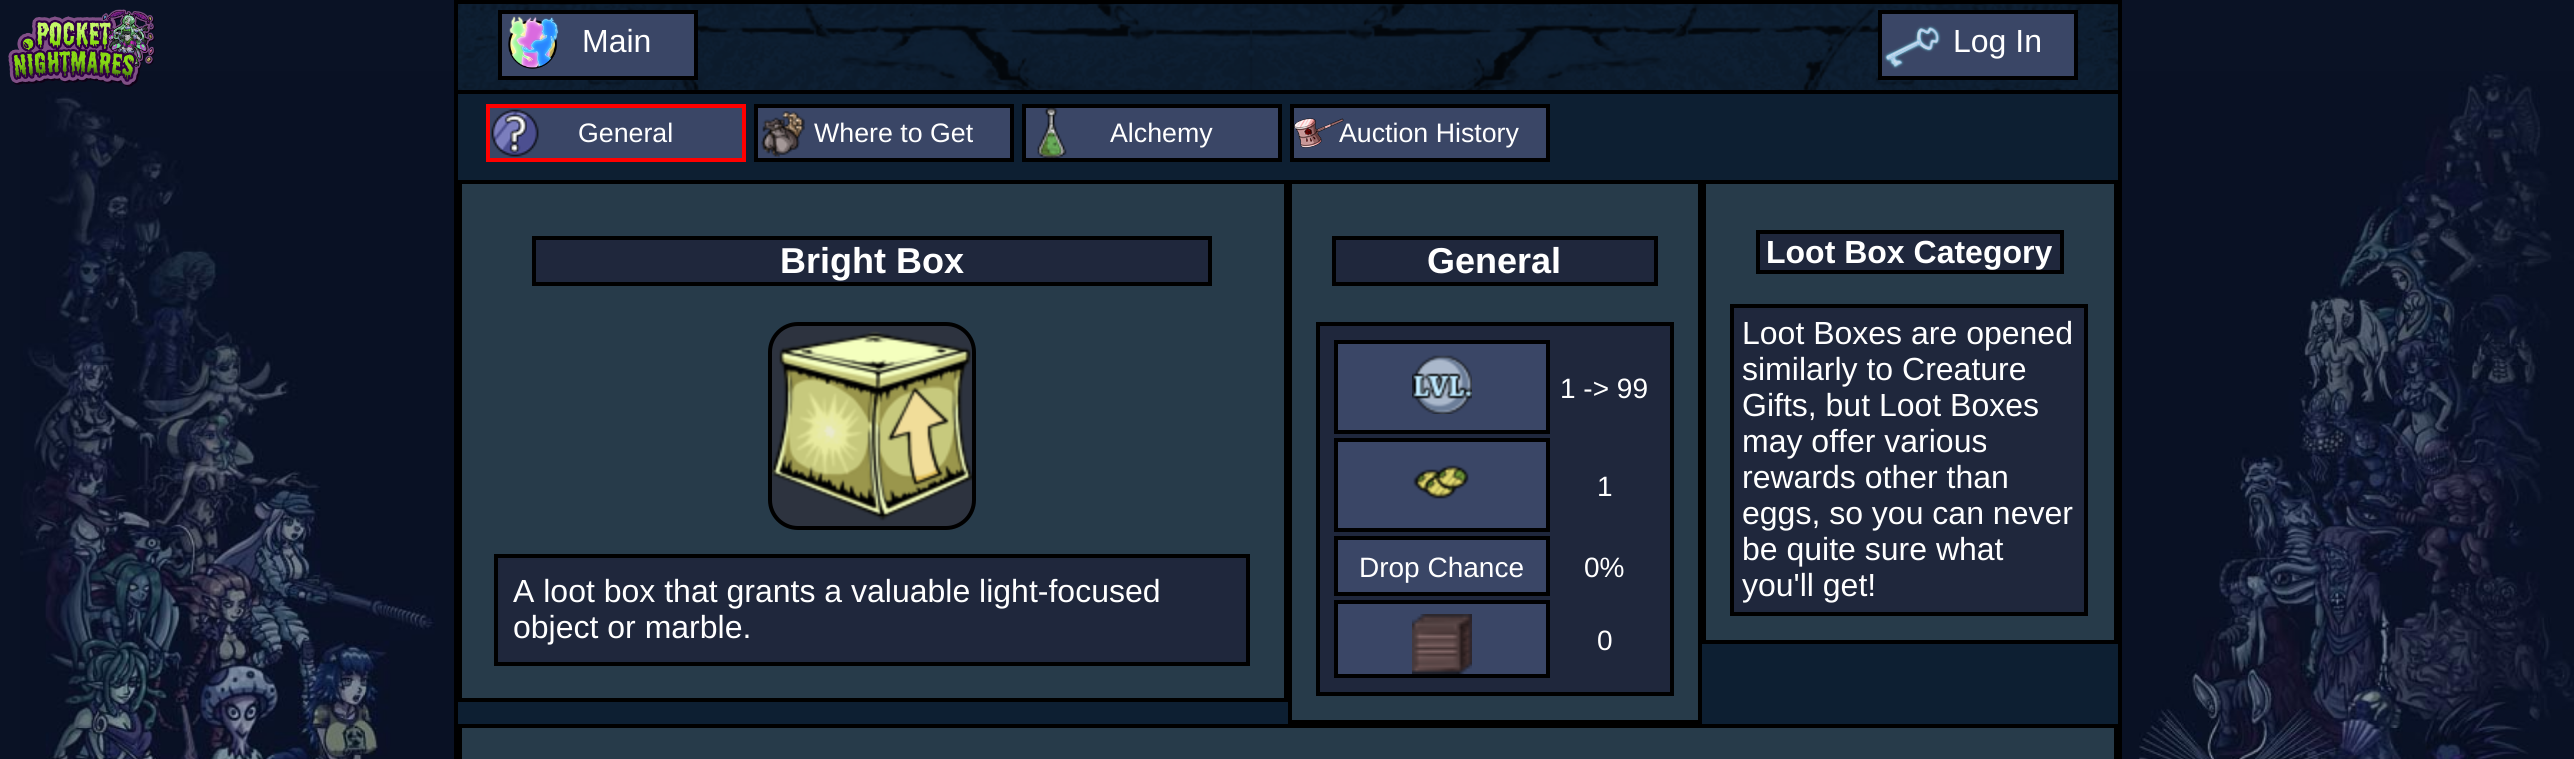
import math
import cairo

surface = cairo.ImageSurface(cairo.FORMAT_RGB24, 2574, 759)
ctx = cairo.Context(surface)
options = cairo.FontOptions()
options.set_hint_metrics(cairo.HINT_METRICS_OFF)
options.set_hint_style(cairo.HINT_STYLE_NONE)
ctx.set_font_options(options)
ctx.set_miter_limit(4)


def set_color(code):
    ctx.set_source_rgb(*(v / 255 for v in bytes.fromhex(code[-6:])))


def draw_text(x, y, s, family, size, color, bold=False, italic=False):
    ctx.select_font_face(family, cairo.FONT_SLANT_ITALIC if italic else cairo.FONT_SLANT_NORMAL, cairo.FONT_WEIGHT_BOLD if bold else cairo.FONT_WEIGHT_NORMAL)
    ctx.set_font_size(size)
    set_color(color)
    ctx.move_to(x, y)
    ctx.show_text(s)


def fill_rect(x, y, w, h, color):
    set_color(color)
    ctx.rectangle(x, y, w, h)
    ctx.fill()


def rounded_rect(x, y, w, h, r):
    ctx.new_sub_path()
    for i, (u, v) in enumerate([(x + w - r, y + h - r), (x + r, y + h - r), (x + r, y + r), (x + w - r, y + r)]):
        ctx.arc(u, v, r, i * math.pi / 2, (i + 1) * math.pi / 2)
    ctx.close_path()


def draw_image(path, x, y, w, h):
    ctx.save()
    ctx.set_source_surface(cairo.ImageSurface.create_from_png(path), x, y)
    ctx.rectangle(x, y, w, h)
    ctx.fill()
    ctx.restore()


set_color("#0a1225")
ctx.paint()
draw_image("assets/img1.png", 20, 71, 2554, 688)
draw_image("assets/img2.png", 8, 9, 147, 78)
fill_rect(458, 4, 1660, 86, "#0e2034")
draw_image("assets/img3.png", 458, 4, 1660, 86)
fill_rect(454, 0, 1668, 4, "#000000")
fill_rect(2118, 0, 4, 90, "#000000")
fill_rect(454, 0, 4, 90, "#000000")
fill_rect(502, 14, 192, 62, "#3a4666")
draw_image("assets/img4.png", 508, 16, 51, 53)
ctx.rectangle(500, 12, 196, 66)
set_color("#000000")
ctx.set_line_width(4)
ctx.stroke()
draw_text(582, 52, "Main", "Liberation Sans", 32, "#ffffff")
fill_rect(1882, 14, 192, 62, "#3a4666")
draw_image("assets/img5.png", 1884, 25, 57, 44)
ctx.rectangle(1880, 12, 196, 66)
set_color("#000000")
ctx.stroke()
draw_text(1953, 52, "Log In", "Liberation Sans", 32, "#ffffff")
fill_rect(458, 94, 1660, 630, "#0d1f32")
ctx.rectangle(456, 92, 1664, 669)
set_color("#000000")
ctx.stroke()
fill_rect(490, 108, 252, 50, "#3a4666")
draw_image("assets/img6.png", 491, 109, 48, 48)
ctx.rectangle(488, 106, 256, 54)
set_color("#ff0000")
ctx.stroke()
draw_text(578, 142, "General", "Liberation Sans", 26.75, "#ffffff")
fill_rect(758, 108, 252, 50, "#3a4666")
draw_image("assets/img7.png", 761, 111, 44, 47)
ctx.rectangle(756, 106, 256, 54)
set_color("#000000")
ctx.stroke()
draw_text(814, 142, "Where to Get", "Liberation Sans", 26.75, "#ffffff")
fill_rect(1026, 108, 252, 50, "#3a4666")
draw_image("assets/img8.png", 1037, 108, 30, 50)
ctx.rectangle(1024, 106, 256, 54)
set_color("#000000")
ctx.stroke()
draw_text(1110, 142, "Alchemy", "Liberation Sans", 26.75, "#ffffff")
fill_rect(1294, 108, 252, 50, "#3a4666")
draw_image("assets/img9.png", 1294, 118, 50, 30)
ctx.rectangle(1292, 106, 256, 54)
set_color("#000000")
ctx.stroke()
draw_text(1339, 142, "Auction History", "Liberation Sans", 26.75, "#ffffff")
set_color("#273b4a")
ctx.rectangle(460, 182, 826, 518)
ctx.fill_preserve()
set_color("#000000")
ctx.stroke()
set_color("#1f273c")
ctx.rectangle(534, 238, 676, 46)
ctx.fill_preserve()
set_color("#000000")
ctx.stroke()
draw_text(780, 273, "Bright Box", "Liberation Sans", 36, "#ffffff", bold=True)
set_color("#2d333f")
rounded_rect(770, 324, 204, 204, 28)
ctx.fill_preserve()
set_color("#000000")
ctx.stroke()
draw_image("assets/img10.png", 772, 331, 200, 190)
set_color("#1f273c")
ctx.rectangle(496, 556, 752, 108)
ctx.fill_preserve()
set_color("#000000")
ctx.stroke()
draw_text(513, 602, "A loot box that grants a valuable light-focused", "Liberation Sans", 32, "#ffffff")
draw_text(513, 638, "object or marble.", "Liberation Sans", 32, "#ffffff")
set_color("#273b4a")
ctx.rectangle(1290, 182, 410, 540)
ctx.fill_preserve()
set_color("#000000")
ctx.stroke()
set_color("#1f273c")
ctx.rectangle(1334, 238, 322, 46)
ctx.fill_preserve()
set_color("#000000")
ctx.stroke()
draw_text(1427, 273, "General", "Liberation Sans", 36, "#ffffff", bold=True)
set_color("#1f273c")
ctx.rectangle(1318, 324, 354, 370)
ctx.fill_preserve()
set_color("#000000")
ctx.stroke()
set_color("#3a4666")
ctx.rectangle(1336, 342, 212, 90)
ctx.fill_preserve()
set_color("#000000")
ctx.stroke()
draw_image("assets/img11.png", 1412, 355, 60, 59)
draw_text(1560, 398, "1 -> 99", "Liberation Sans", 28, "#ffffff")
set_color("#3a4666")
ctx.rectangle(1336, 440, 212, 90)
ctx.fill_preserve()
set_color("#000000")
ctx.stroke()
draw_image("assets/img12.png", 1413, 465, 56, 34)
draw_text(1597, 496, "1", "Liberation Sans", 28, "#ffffff")
set_color("#3a4666")
ctx.rectangle(1336, 538, 212, 56)
ctx.fill_preserve()
set_color("#000000")
ctx.stroke()
draw_text(1359, 577, "Drop Chance", "Liberation Sans", 28, "#ffffff")
draw_text(1584, 577, "0%", "Liberation Sans", 28, "#ffffff")
set_color("#3a4666")
ctx.rectangle(1336, 602, 212, 74)
ctx.fill_preserve()
set_color("#000000")
ctx.stroke()
draw_image("assets/img13.png", 1412, 614, 60, 60)
draw_text(1597, 650, "0", "Liberation Sans", 28, "#ffffff")
set_color("#273b4a")
ctx.rectangle(1704, 182, 412, 460)
ctx.fill_preserve()
set_color("#000000")
ctx.stroke()
set_color("#1f273c")
ctx.rectangle(1758, 232, 304, 40)
ctx.fill_preserve()
set_color("#000000")
ctx.stroke()
draw_text(1766, 263, "Loot Box Category", "Liberation Sans", 32, "#ffffff", bold=True)
set_color("#1f273c")
ctx.rectangle(1732, 306, 354, 308)
ctx.fill_preserve()
set_color("#000000")
ctx.stroke()
draw_text(1742, 344, "Loot Boxes are opened", "Liberation Sans", 32, "#ffffff")
draw_text(1742, 380, "similarly to Creature", "Liberation Sans", 32, "#ffffff")
draw_text(1742, 416, "Gifts, but Loot Boxes", "Liberation Sans", 32, "#ffffff")
draw_text(1742, 452, "may offer various", "Liberation Sans", 32, "#ffffff")
draw_text(1742, 488, "rewards other than", "Liberation Sans", 32, "#ffffff")
draw_text(1742, 524, "eggs, so you can never", "Liberation Sans", 32, "#ffffff")
draw_text(1742, 560, "be quite sure what", "Liberation Sans", 32, "#ffffff")
draw_text(1742, 596, "you'll get!", "Liberation Sans", 32, "#ffffff")
set_color("#273b4a")
ctx.rectangle(460, 726, 1656, 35)
ctx.fill_preserve()
set_color("#000000")
ctx.stroke()
surface.write_to_png("output.png")
